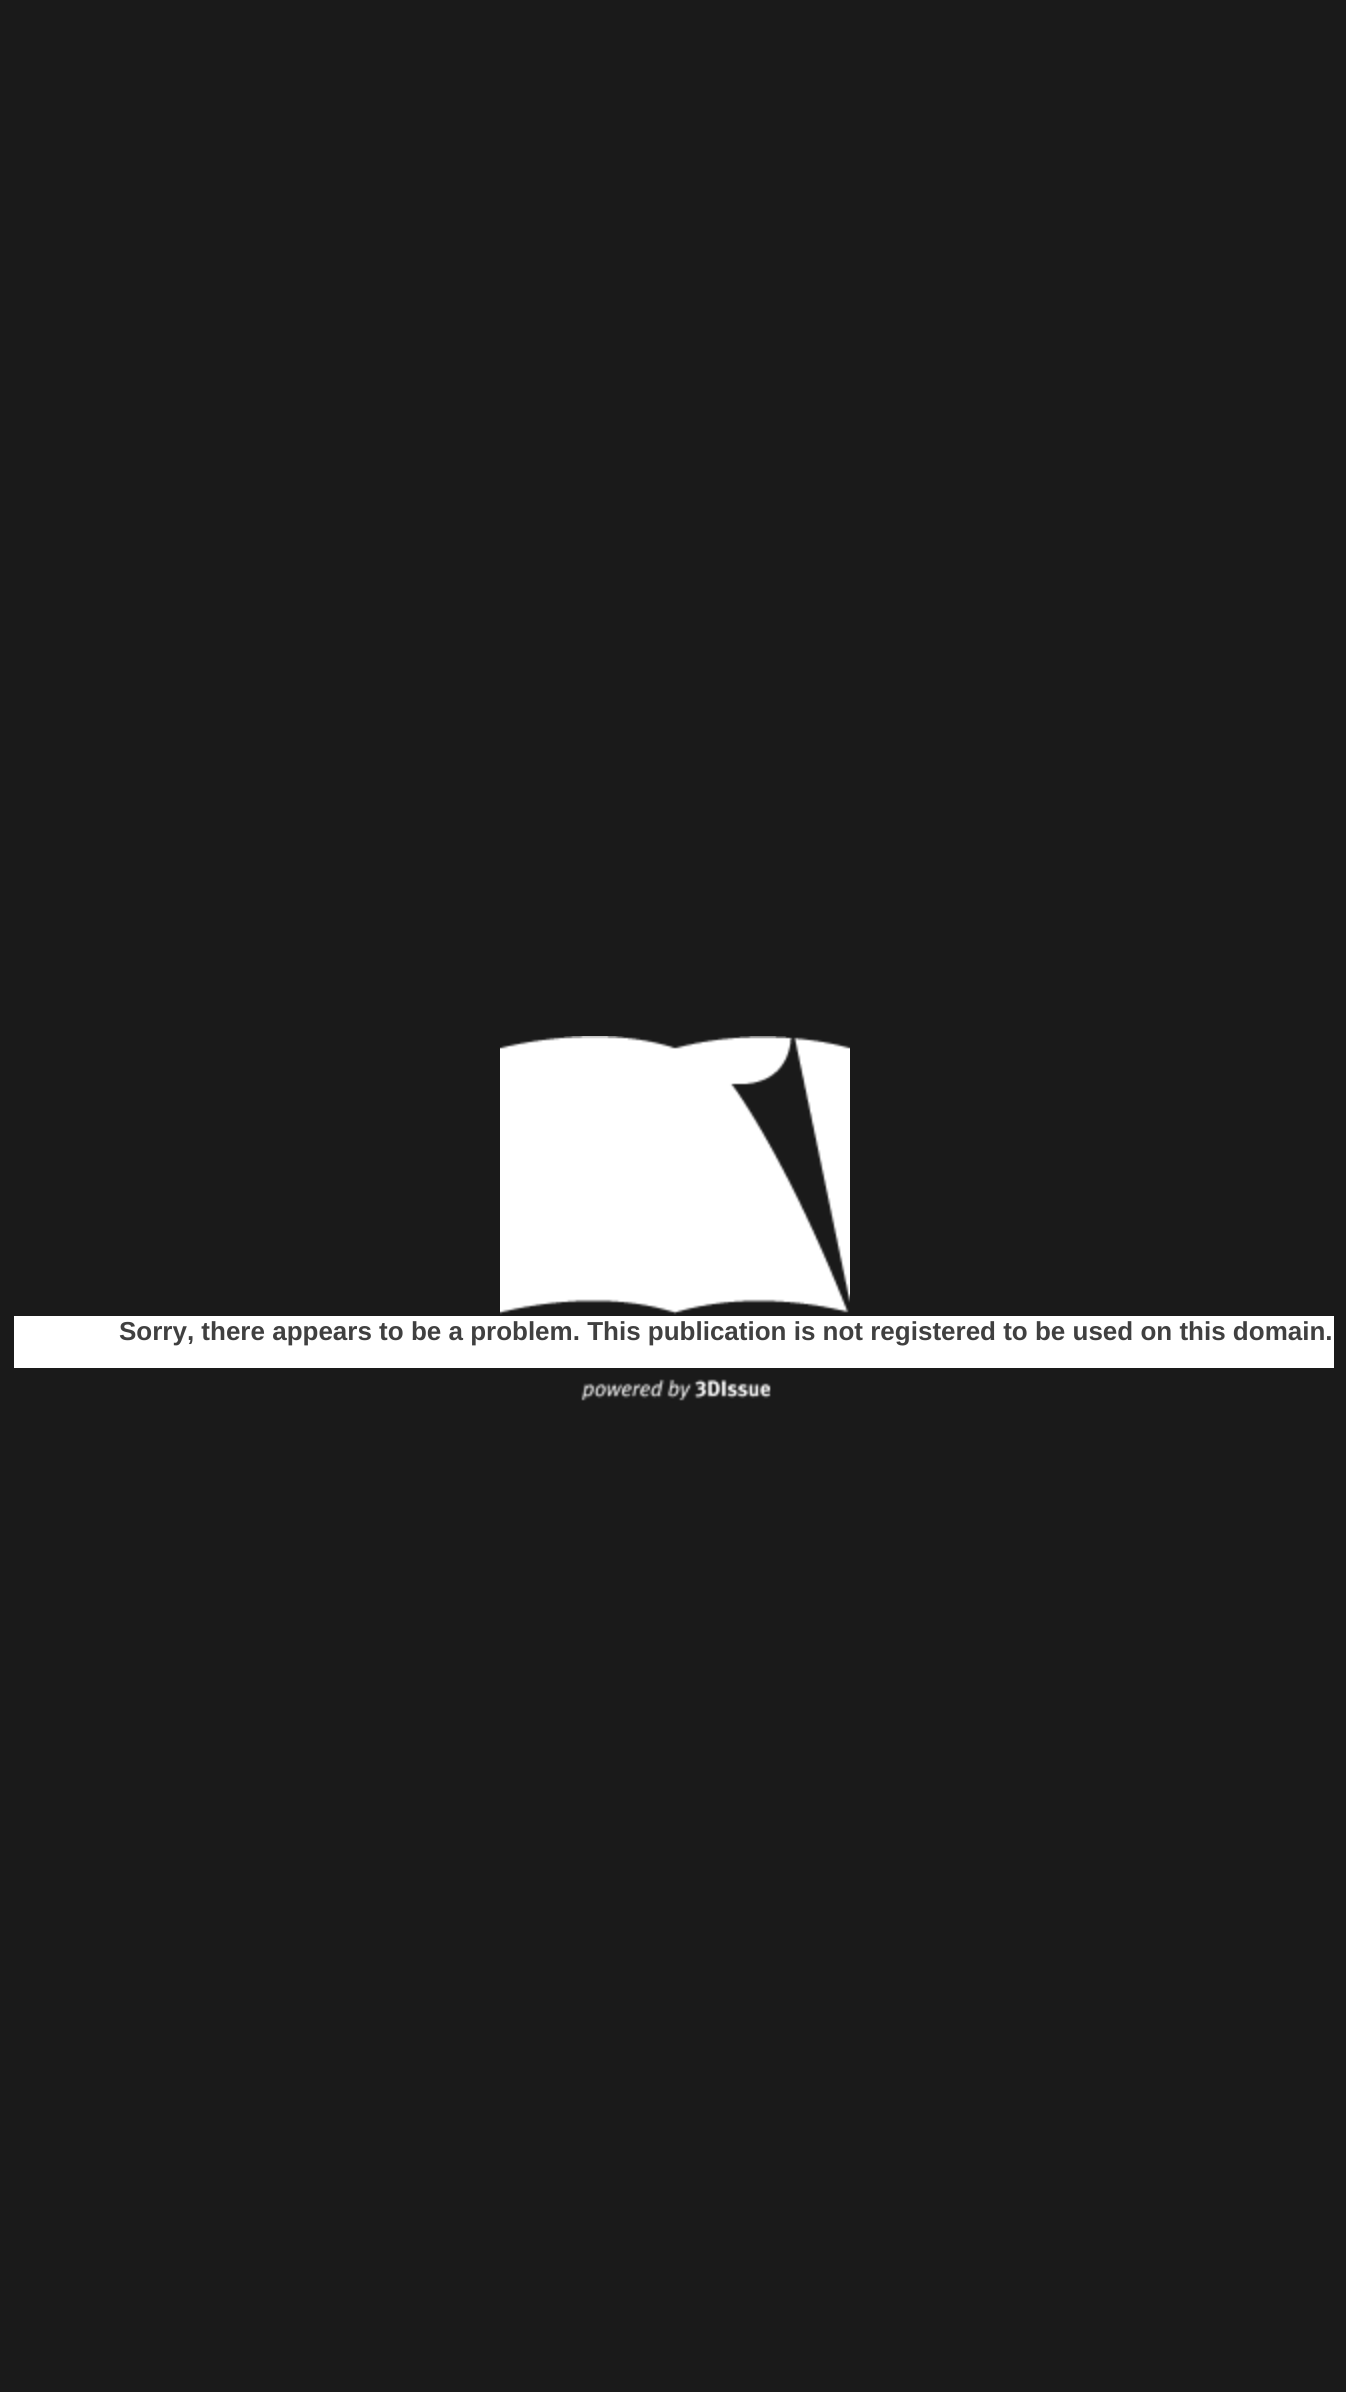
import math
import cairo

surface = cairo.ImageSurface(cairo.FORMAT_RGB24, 1346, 2392)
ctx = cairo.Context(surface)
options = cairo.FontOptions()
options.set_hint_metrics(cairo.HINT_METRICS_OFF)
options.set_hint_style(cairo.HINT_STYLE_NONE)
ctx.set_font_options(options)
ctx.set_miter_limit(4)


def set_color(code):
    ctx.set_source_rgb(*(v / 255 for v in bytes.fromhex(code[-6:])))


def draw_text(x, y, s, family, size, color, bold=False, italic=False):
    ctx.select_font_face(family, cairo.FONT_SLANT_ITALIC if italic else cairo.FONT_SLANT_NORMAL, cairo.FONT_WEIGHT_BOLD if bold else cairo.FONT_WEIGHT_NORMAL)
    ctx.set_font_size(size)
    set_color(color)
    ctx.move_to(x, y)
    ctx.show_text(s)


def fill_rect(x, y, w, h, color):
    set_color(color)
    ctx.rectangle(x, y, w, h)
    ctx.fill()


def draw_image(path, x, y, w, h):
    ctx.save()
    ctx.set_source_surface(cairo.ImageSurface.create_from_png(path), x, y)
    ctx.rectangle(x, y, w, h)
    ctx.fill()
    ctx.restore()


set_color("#1a1a1a")
ctx.paint()
draw_image("assets/img1.png", 500, 1036, 350, 279)
fill_rect(14, 1316, 1320, 52, "#ffffff")
draw_text(119, 1340, "Sorry, there appears to be a problem. This publication is not registered to be used on this domain.", "Liberation Sans", 26, "#404040", bold=True)
draw_image("assets/img2.png", 581, 1379, 190, 22)
surface.write_to_png("output.png")
